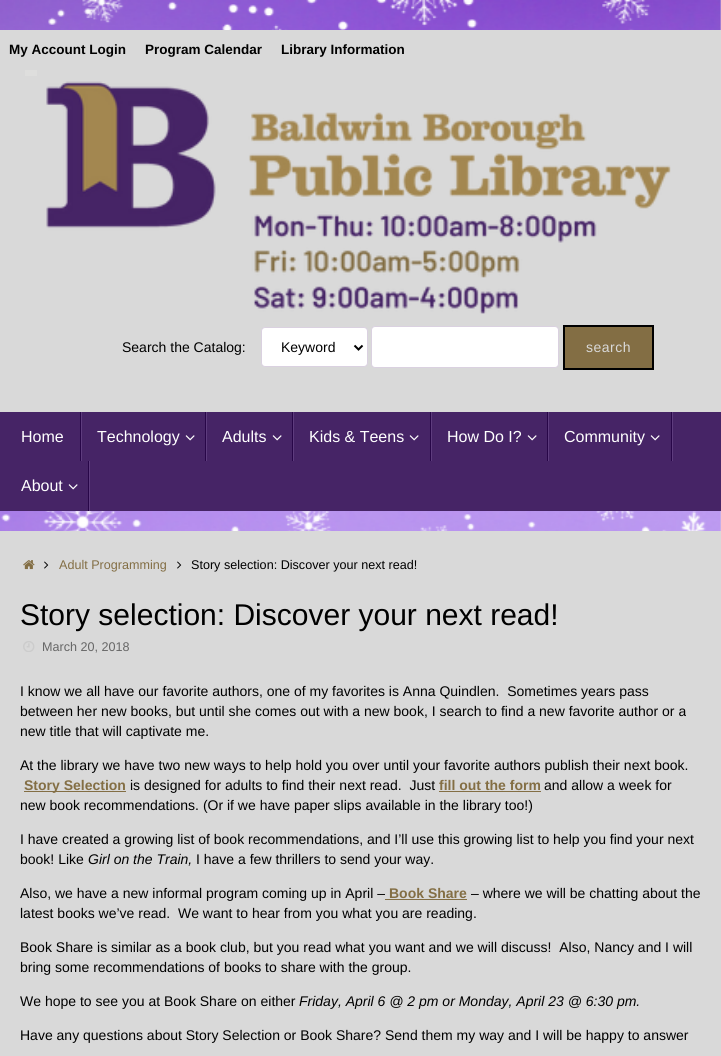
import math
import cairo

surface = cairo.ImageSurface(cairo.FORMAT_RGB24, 721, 1056)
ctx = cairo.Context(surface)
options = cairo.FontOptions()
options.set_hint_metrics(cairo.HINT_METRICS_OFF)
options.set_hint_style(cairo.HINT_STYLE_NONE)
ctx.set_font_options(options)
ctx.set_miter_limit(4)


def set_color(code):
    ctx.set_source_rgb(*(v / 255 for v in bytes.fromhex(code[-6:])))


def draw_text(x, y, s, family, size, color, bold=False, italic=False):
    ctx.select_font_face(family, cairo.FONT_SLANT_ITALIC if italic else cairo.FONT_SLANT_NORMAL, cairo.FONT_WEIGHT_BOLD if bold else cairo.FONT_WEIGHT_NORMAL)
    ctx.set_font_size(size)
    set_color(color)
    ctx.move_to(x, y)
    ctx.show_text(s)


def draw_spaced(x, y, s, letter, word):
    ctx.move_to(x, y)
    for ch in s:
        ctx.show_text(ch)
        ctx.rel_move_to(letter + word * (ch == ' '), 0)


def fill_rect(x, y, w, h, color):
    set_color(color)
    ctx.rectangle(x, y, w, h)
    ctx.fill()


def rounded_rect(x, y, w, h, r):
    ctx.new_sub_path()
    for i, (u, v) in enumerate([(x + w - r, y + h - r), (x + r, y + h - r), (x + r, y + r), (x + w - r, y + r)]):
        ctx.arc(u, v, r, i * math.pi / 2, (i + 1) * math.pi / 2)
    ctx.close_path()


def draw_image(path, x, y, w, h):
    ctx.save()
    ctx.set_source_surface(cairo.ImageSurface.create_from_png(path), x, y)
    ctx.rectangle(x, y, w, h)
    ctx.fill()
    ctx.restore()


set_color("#d9d9d9")
ctx.paint()
draw_image("assets/img1.png", 0, 0, 721, 531)
fill_rect(0, 30, 721, 382, "#d9d9d9")
draw_text(9, 54, "My Account Login", "Liberation Sans", 13.5, "#000000", bold=True)
draw_text(145, 54, "Program Calendar", "Liberation Sans", 13.5, "#000000", bold=True)
draw_text(281, 54, "Library Information", "Liberation Sans", 13.5, "#000000", bold=True)
fill_rect(25, 70, 12, 6, "#dededd")
draw_image("assets/img2.png", 46, 81, 625, 233)
draw_text(122, 352, "Search the Catalog:", "Liberation Sans", 14, "#000000")
set_color("#ffffff")
rounded_rect(261.5, 327.5, 106, 39, 3.5)
ctx.fill_preserve()
set_color("#dad1e0")
ctx.set_line_width(1)
ctx.stroke()
ctx.new_path()
ctx.move_to(354.5, 345.5)
ctx.line_to(358.5, 349.5)
ctx.line_to(362.5, 345.5)
set_color("#000000")
ctx.set_line_width(2)
ctx.stroke()
draw_text(281, 352, "Keyword", "Liberation Sans", 14, "#000000")
set_color("#ffffff")
rounded_rect(371.5, 326.5, 187, 41, 3.5)
ctx.fill_preserve()
set_color("#dad1e0")
ctx.set_line_width(1)
ctx.stroke()
set_color("#836e44")
ctx.rectangle(564, 326, 89, 43)
ctx.fill_preserve()
set_color("#000000")
ctx.set_line_width(2)
ctx.stroke()
set_color("#d9d9d9")
draw_spaced(586, 352, "search", 0.5, 0)
fill_rect(0, 412, 721, 99, "#462466")
fill_rect(81, 412, 1, 49, "#5e3c7e")
fill_rect(80, 412, 1, 49, "#280648")
draw_text(21, 442, "Home", "Liberation Sans", 16, "#ffffff")
fill_rect(206, 412, 1, 49, "#5e3c7e")
fill_rect(205, 412, 1, 49, "#280648")
draw_text(97, 442, "Technology", "Liberation Sans", 16, "#ffffff")
draw_image("assets/img3.png", 185, 435, 10, 6)
fill_rect(293, 412, 1, 49, "#5e3c7e")
fill_rect(292, 412, 1, 49, "#280648")
draw_text(222, 442, "Adults", "Liberation Sans", 16, "#ffffff")
draw_image("assets/img3.png", 272, 435, 10, 6)
fill_rect(431, 412, 1, 49, "#5e3c7e")
fill_rect(430, 412, 1, 49, "#280648")
draw_text(309, 442, "Kids & Teens", "Liberation Sans", 16, "#ffffff")
draw_image("assets/img3.png", 409, 435, 10, 6)
fill_rect(548, 412, 1, 49, "#5e3c7e")
fill_rect(547, 412, 1, 49, "#280648")
draw_text(447, 442, "How Do I?", "Liberation Sans", 16, "#ffffff")
draw_image("assets/img3.png", 527, 435, 10, 6)
fill_rect(672, 412, 1, 49, "#5e3c7e")
fill_rect(671, 412, 1, 49, "#280648")
draw_text(564, 442, "Community", "Liberation Sans", 16, "#ffffff")
draw_image("assets/img3.png", 650, 435, 10, 6)
fill_rect(89, 461, 1, 50, "#5e3c7e")
fill_rect(88, 461, 1, 50, "#280648")
draw_text(21, 491, "About", "Liberation Sans", 16, "#ffffff")
draw_image("assets/img3.png", 68, 484, 10, 6)
draw_image("assets/img4.png", 23, 560, 12, 10)
draw_image("assets/img5.png", 44, 561, 5, 8)
draw_text(59, 569, "Adult Programming", "Liberation Sans", 12.6, "#836e44")
draw_image("assets/img5.png", 177, 561, 5, 8)
draw_text(191, 569, "Story selection: Discover your next read!", "Liberation Sans", 12.6, "#000000")
draw_text(20, 625, "Story selection: Discover your next read!", "Liberation Sans", 30, "#000000")
draw_image("assets/img6.png", 23, 641, 12, 11)
draw_text(42, 651, "March 20, 2018", "Liberation Sans", 12.6, "#666666")
draw_text(20, 696, "I know we all have our favorite authors, one of my favorites is Anna Quindlen.  Sometimes years pass", "Liberation Sans", 14, "#000000")
draw_text(20, 716, "between her new books, but until she comes out with a new book, I search to find a new favorite author or a", "Liberation Sans", 14, "#000000")
draw_text(20, 736, "new title that will captivate me.", "Liberation Sans", 14, "#000000")
draw_text(20, 770, "At the library we have two new ways to help hold you over until your favorite authors publish their next book.", "Liberation Sans", 14, "#000000")
fill_rect(24, 791, 102, 1, "#836e44")
draw_text(24, 790, "Story Selection", "Liberation Sans", 14, "#836e44", bold=True)
draw_text(130, 790, "is designed for adults to find their next read.  Just", "Liberation Sans", 14, "#000000")
draw_text(439, 790, "fill out the form", "Liberation Sans", 14, "#836e44", bold=True)
fill_rect(439, 791, 102, 1, "#836e44")
draw_text(544, 790, "and allow a week for", "Liberation Sans", 14, "#000000")
draw_text(20, 810, "new book recommendations. (Or if we have paper slips available in the library too!)", "Liberation Sans", 14, "#000000")
draw_text(20, 844, "I have created a growing list of book recommendations, and I’ll use this growing list to help you find your next", "Liberation Sans", 14, "#000000")
draw_text(20, 864, "book! Like", "Liberation Sans", 14, "#000000")
draw_text(88, 864, "Girl on the Train,", "Liberation Sans", 14, "#000000", italic=True)
draw_text(196, 864, "I have a few thrillers to send your way.", "Liberation Sans", 14, "#000000")
draw_text(20, 898, "Also, we have a new informal program coming up in April –", "Liberation Sans", 14, "#000000")
draw_text(389, 898, "Book Share", "Liberation Sans", 14, "#836e44", bold=True)
fill_rect(385, 899, 82, 1, "#836e44")
draw_text(471, 898, "– where we will be chatting about the", "Liberation Sans", 14, "#000000")
draw_text(20, 918, "latest books we’ve read.  We want to hear from you what you are reading.", "Liberation Sans", 14, "#000000")
draw_text(20, 952, "Book Share is similar as a book club, but you read what you want and we will discuss!  Also, Nancy and I will", "Liberation Sans", 14, "#000000")
draw_text(20, 972, "bring some recommendations of books to share with the group.", "Liberation Sans", 14, "#000000")
draw_text(20, 1006, "We hope to see you at Book Share on either", "Liberation Sans", 14, "#000000")
draw_text(299, 1006, "Friday, April 6 @ 2 pm or Monday, April 23 @ 6:30 pm.", "Liberation Sans", 14, "#000000", italic=True)
draw_text(20, 1040, "Have any questions about Story Selection or Book Share? Send them my way and I will be happy to answer", "Liberation Sans", 14, "#000000")
surface.write_to_png("output.png")
